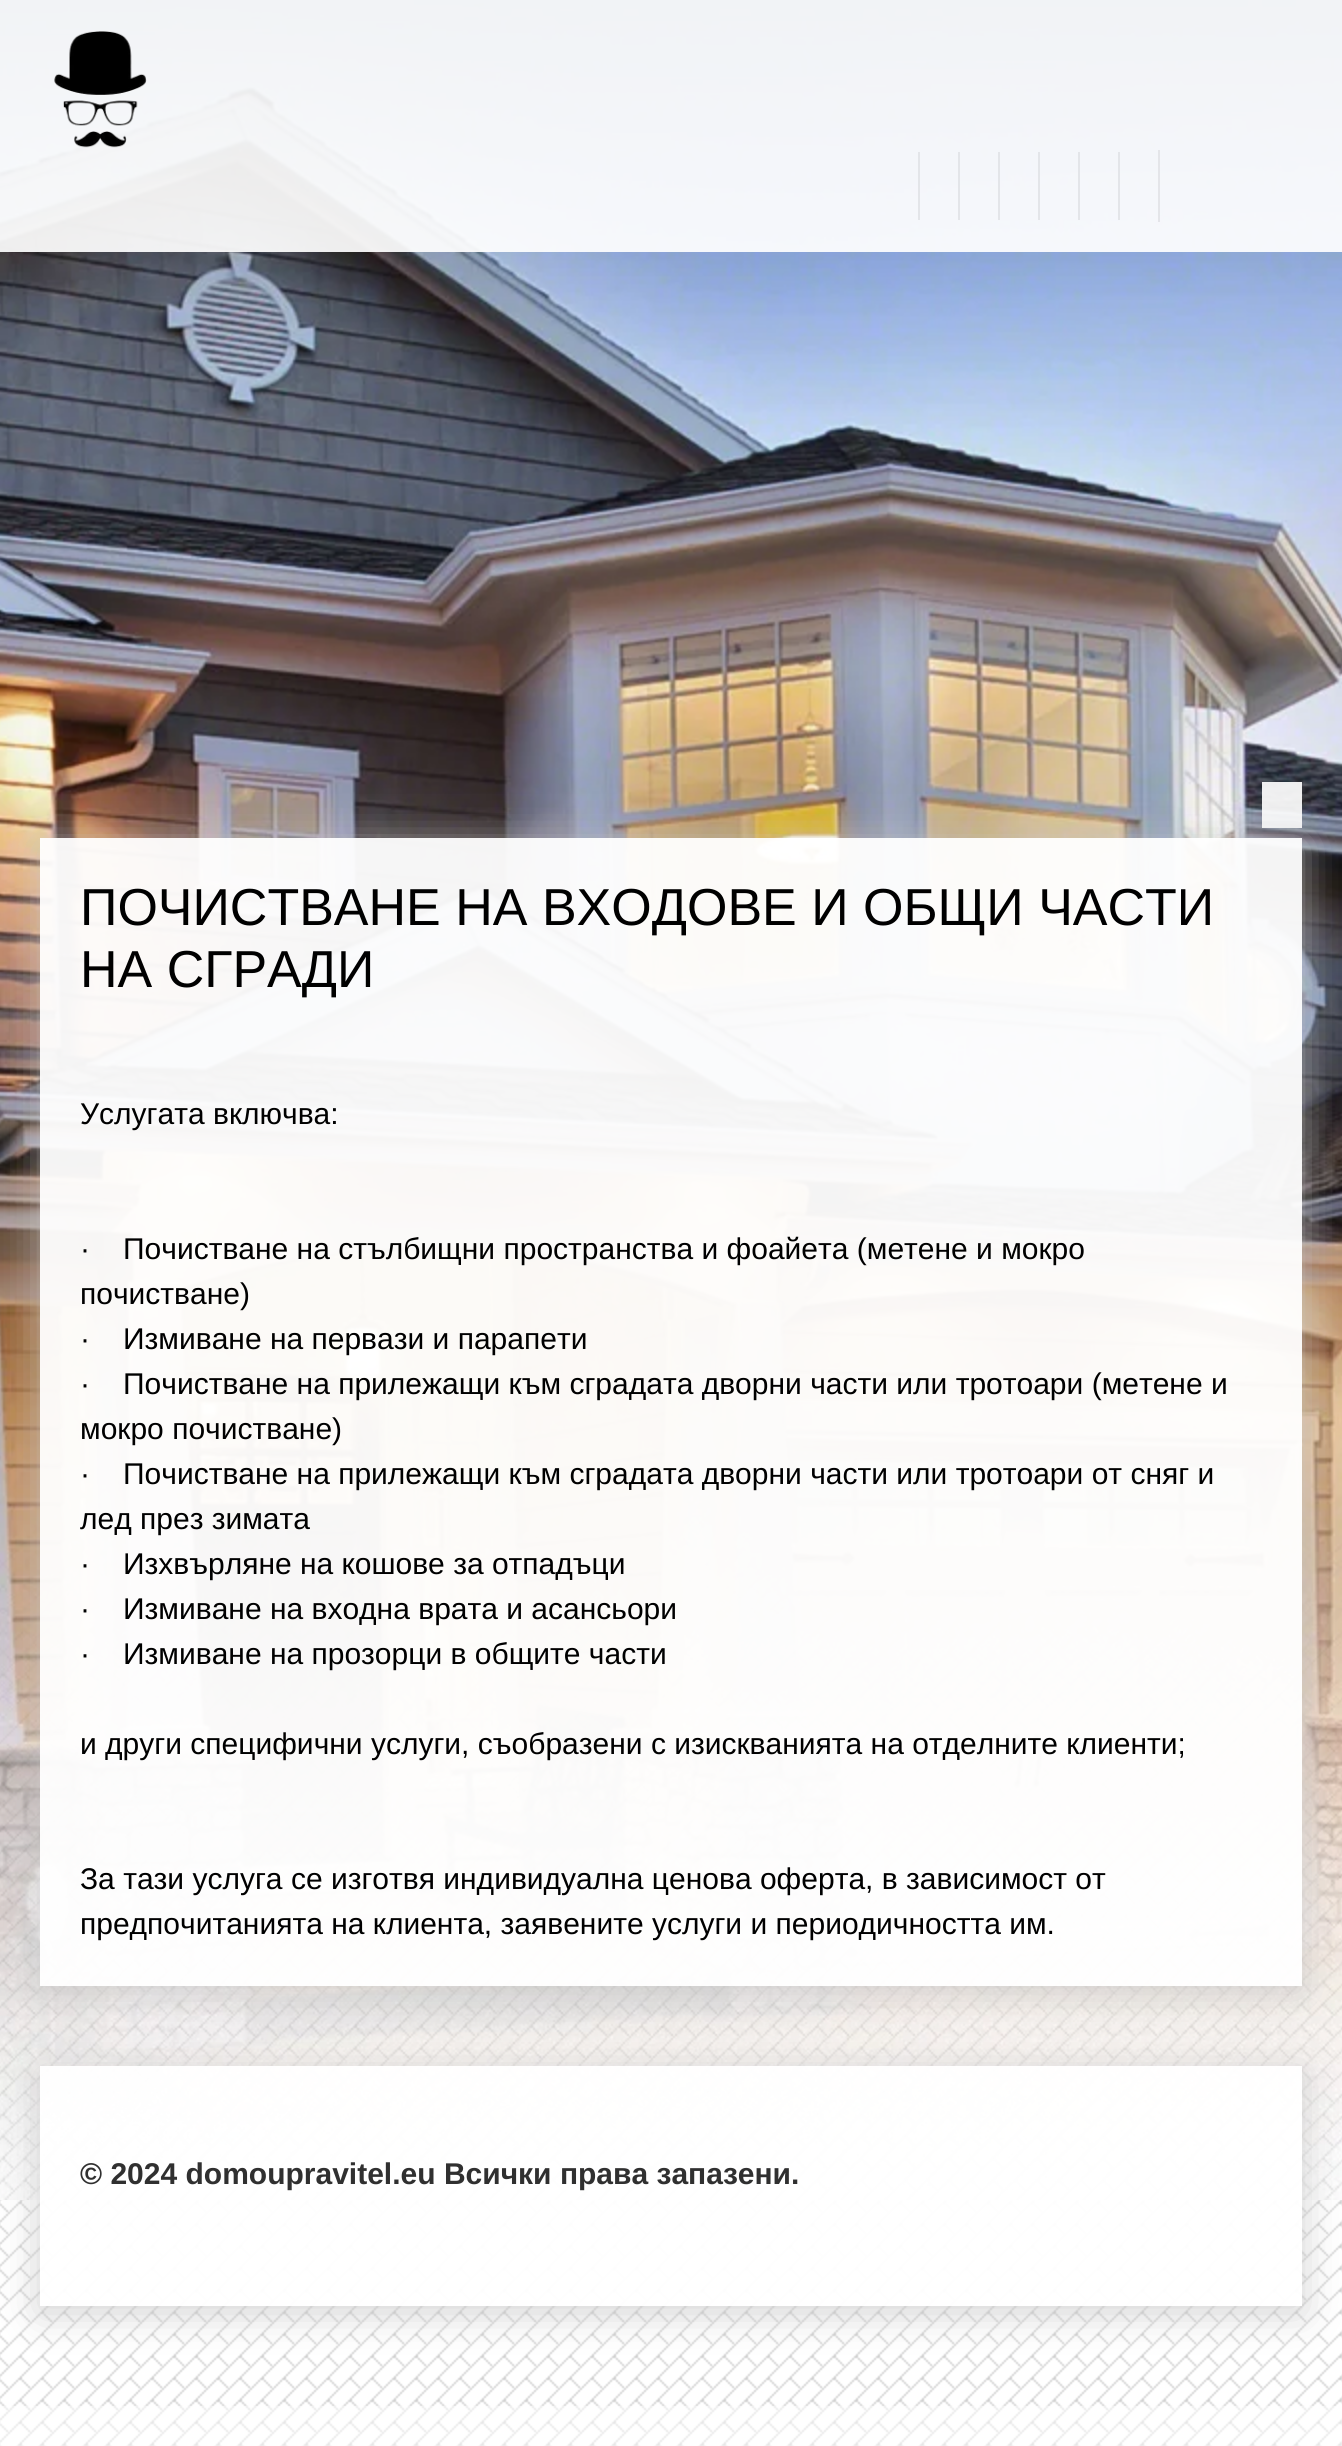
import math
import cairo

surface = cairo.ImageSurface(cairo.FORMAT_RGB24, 1342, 2446)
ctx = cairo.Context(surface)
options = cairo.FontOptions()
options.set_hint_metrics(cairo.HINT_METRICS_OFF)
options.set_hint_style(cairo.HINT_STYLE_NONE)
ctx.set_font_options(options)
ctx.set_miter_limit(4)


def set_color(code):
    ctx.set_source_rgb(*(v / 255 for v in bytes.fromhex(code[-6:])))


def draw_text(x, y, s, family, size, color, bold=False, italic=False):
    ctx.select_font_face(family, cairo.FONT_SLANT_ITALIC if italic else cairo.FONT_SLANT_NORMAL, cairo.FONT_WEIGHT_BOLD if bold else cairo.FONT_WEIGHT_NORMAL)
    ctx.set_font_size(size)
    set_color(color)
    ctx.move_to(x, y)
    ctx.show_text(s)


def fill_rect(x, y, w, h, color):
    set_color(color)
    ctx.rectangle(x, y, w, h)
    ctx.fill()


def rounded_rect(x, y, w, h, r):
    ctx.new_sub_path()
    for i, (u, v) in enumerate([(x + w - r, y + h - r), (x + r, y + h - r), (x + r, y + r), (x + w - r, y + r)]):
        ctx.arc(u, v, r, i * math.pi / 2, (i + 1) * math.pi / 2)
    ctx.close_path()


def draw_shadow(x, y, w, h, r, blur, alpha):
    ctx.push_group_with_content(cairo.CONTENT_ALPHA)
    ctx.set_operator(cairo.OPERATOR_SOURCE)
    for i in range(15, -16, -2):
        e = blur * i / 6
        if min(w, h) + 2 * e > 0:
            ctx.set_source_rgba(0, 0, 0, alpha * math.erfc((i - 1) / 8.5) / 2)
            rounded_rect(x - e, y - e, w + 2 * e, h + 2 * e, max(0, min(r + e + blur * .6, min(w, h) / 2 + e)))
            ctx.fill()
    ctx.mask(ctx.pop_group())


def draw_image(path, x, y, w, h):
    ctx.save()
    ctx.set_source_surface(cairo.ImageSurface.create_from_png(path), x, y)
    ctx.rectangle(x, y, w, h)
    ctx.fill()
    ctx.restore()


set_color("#ffffff")
ctx.paint()
draw_image("assets/img1.png", 0, 2200, 1342, 246)
draw_image("assets/img2.png", 0, 2200, 1342, 206)
draw_image("assets/img3.png", 0, 0, 1342, 2200)
ctx.set_source_rgba(1, 1, 1, 0.92)
ctx.rectangle(0, 0, 1342, 252)
ctx.fill()
draw_image("assets/img4.png", 54, 31, 93, 117)
fill_rect(918, 152, 2, 68, "#e3e5e9")
fill_rect(958, 152, 2, 68, "#e3e5e9")
fill_rect(998, 152, 2, 68, "#e3e5e9")
fill_rect(1038, 152, 2, 68, "#e3e5e9")
fill_rect(1078, 152, 2, 68, "#e3e5e9")
fill_rect(1118, 152, 2, 68, "#e3e5e9")
fill_rect(1158, 150, 2, 72, "#e4e5e9")
ctx.set_source_rgba(1, 1, 1, 0.92)
ctx.rectangle(1262, 782, 40, 46)
ctx.fill()
ctx.save()
ctx.set_fill_rule(cairo.FILL_RULE_EVEN_ODD)
ctx.new_path()
ctx.move_to(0, 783)
ctx.line_to(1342, 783)
ctx.line_to(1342, 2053)
ctx.line_to(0, 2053)
ctx.close_path()
ctx.move_to(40, 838)
ctx.line_to(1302, 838)
ctx.line_to(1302, 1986)
ctx.line_to(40, 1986)
ctx.close_path()
ctx.clip()
set_color("#c5c5c5")
draw_shadow(40, 844, 1262, 1148, 0, 20, 0.8)
ctx.restore()
ctx.set_source_rgba(1, 1, 1, 0.95)
ctx.rectangle(40, 838, 1262, 1148)
ctx.fill()
draw_text(80, 925, "ПОЧИСТВАНЕ НА ВХОДОВЕ И ОБЩИ ЧАСТИ", "Liberation Sans", 52, "#000000")
draw_text(80, 987, "НА СГРАДИ", "Liberation Sans", 52, "#000000")
draw_text(80, 1124, "Услугата включва:", "Liberation Sans", 30, "#000000")
draw_text(80, 1259, "·", "Liberation Sans", 30, "#000000")
draw_text(123, 1259, "Почистване на стълбищни пространства и фоайета (метене и мокро", "Liberation Sans", 30, "#000000")
draw_text(80, 1304, "почистване)", "Liberation Sans", 30, "#000000")
draw_text(80, 1349, "·", "Liberation Sans", 30, "#000000")
draw_text(123, 1349, "Измиване на первази и парапети", "Liberation Sans", 30, "#000000")
draw_text(80, 1394, "·", "Liberation Sans", 30, "#000000")
draw_text(123, 1394, "Почистване на прилежащи към сградата дворни части или тротоари (метене и", "Liberation Sans", 30, "#000000")
draw_text(80, 1439, "мокро почистване)", "Liberation Sans", 30, "#000000")
draw_text(80, 1484, "·", "Liberation Sans", 30, "#000000")
draw_text(123, 1484, "Почистване на прилежащи към сградата дворни части или тротоари от сняг и", "Liberation Sans", 30, "#000000")
draw_text(80, 1529, "лед през зимата", "Liberation Sans", 30, "#000000")
draw_text(80, 1574, "·", "Liberation Sans", 30, "#000000")
draw_text(123, 1574, "Изхвърляне на кошове за отпадъци", "Liberation Sans", 30, "#000000")
draw_text(80, 1619, "·", "Liberation Sans", 30, "#000000")
draw_text(123, 1619, "Измиване на входна врата и асансьори", "Liberation Sans", 30, "#000000")
draw_text(80, 1664, "·", "Liberation Sans", 30, "#000000")
draw_text(123, 1664, "Измиване на прозорци в общите части", "Liberation Sans", 30, "#000000")
draw_text(80, 1754, "и други специфични услуги, съобразени с изискванията на отделните клиенти;", "Liberation Sans", 30, "#000000")
draw_text(80, 1889, "За тази услуга се изготвя индивидуална ценова оферта, в зависимост от", "Liberation Sans", 30, "#000000")
draw_text(80, 1934, "предпочитанията на клиента, заявените услуги и периодичността им.", "Liberation Sans", 30, "#000000")
ctx.save()
ctx.set_fill_rule(cairo.FILL_RULE_EVEN_ODD)
ctx.new_path()
ctx.move_to(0, 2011)
ctx.line_to(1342, 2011)
ctx.line_to(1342, 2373)
ctx.line_to(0, 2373)
ctx.close_path()
ctx.move_to(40, 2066)
ctx.line_to(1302, 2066)
ctx.line_to(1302, 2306)
ctx.line_to(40, 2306)
ctx.close_path()
ctx.clip()
set_color("#c5c5c5")
draw_shadow(40, 2072, 1262, 240, 0, 20, 0.8)
ctx.restore()
ctx.set_source_rgba(1, 1, 1, 0.95)
ctx.rectangle(40, 2066, 1262, 240)
ctx.fill()
draw_text(80, 2184, "© 2024 domoupravitel.eu Всички права запазени.", "Liberation Sans", 30, "#303030", bold=True)
surface.write_to_png("output.png")
